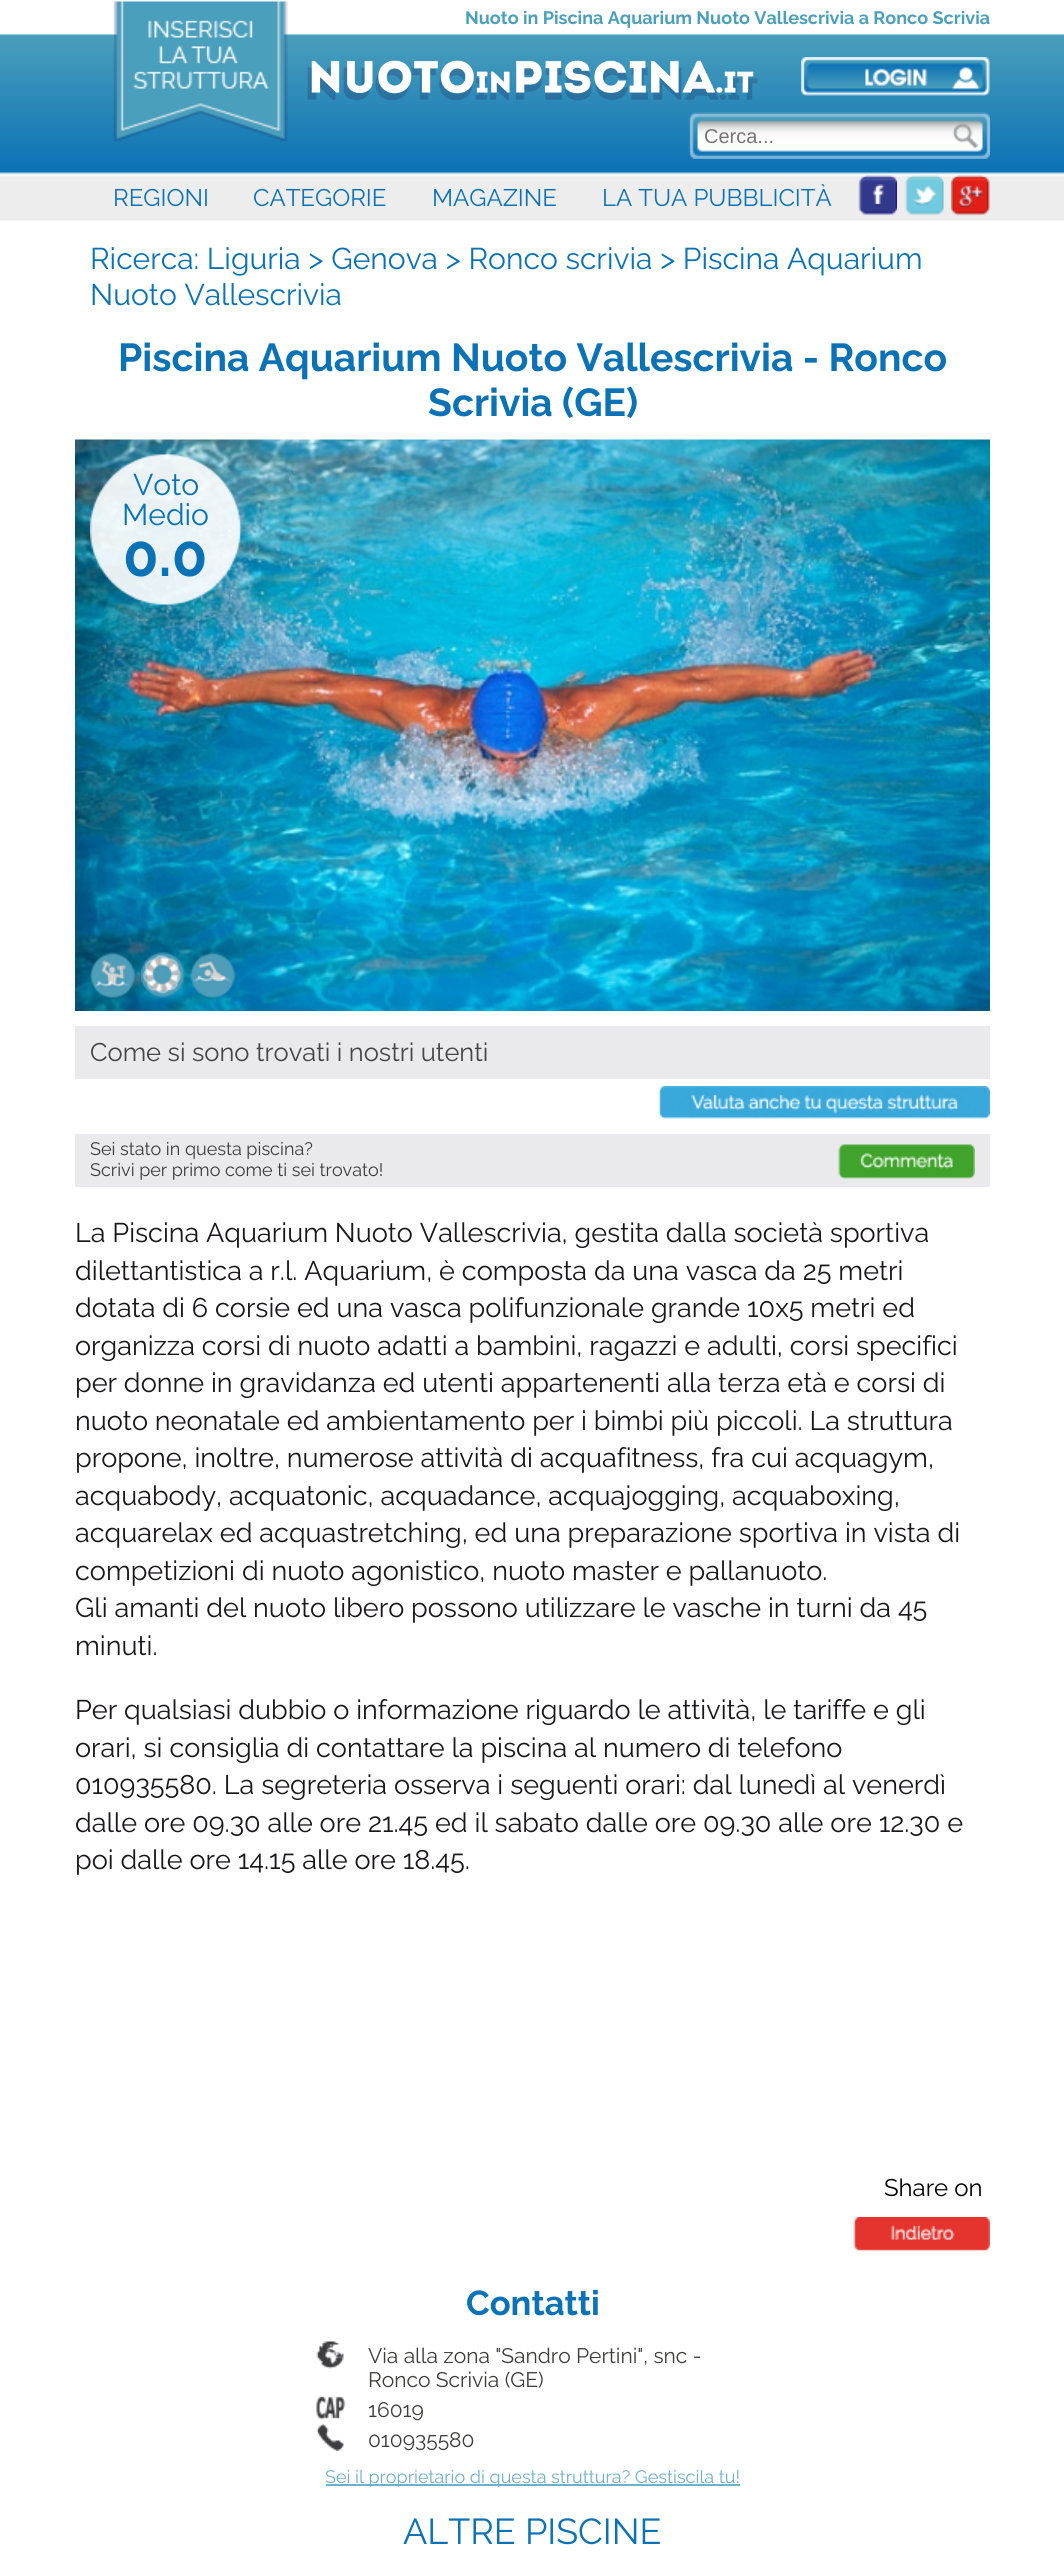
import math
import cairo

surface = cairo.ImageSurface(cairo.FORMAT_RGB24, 1064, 2571)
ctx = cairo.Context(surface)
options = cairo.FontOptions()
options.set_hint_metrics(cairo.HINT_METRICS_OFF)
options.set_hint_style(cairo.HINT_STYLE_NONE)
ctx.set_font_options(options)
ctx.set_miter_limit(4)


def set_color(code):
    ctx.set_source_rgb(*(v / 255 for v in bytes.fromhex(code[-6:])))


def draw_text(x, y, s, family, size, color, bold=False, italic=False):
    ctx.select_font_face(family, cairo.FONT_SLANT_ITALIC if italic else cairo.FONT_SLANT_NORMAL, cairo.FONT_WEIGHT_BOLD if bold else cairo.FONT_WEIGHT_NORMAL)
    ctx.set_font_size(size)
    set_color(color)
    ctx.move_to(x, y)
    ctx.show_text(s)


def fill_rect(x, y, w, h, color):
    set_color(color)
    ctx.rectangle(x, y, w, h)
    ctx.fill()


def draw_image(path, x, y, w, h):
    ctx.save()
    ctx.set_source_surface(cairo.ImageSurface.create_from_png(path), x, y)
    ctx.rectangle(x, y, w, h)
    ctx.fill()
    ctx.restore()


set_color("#ffffff")
ctx.paint()
draw_image("assets/img1.png", 0, 34, 1064, 187)
draw_image("assets/img2.png", 113, 0, 175, 142)
draw_text(465, 24, "Nuoto in Piscina Aquarium Nuoto Vallescrivia a Ronco Scrivia", "Raleway", 18, "#4a9fbc", bold=True)
draw_image("assets/img3.png", 307, 60, 451, 41)
draw_image("assets/img4.png", 801, 57, 189, 39)
draw_image("assets/img5.png", 689, 112, 301, 47)
draw_text(704, 143, "Cerca...", "Liberation Sans", 20, "#757575")
draw_image("assets/img6.png", 952, 123, 26, 26)
draw_text(113, 206, "REGIONI", "Raleway", 24, "#0b72b5")
draw_text(253, 206, "CATEGORIE", "Raleway", 24, "#0b72b5")
draw_text(432, 206, "MAGAZINE", "Raleway", 24, "#0b72b5")
draw_text(602, 206, "LA TUA PUBBLICITÀ", "Raleway", 24, "#0b72b5")
draw_image("assets/img7.png", 858, 175, 39, 41)
draw_image("assets/img8.png", 904, 175, 40, 40)
draw_image("assets/img9.png", 951, 175, 39, 41)
draw_text(90, 269, "Ricerca: Liguria > Genova > Ronco scrivia > Piscina Aquarium", "Raleway", 30, "#0b72b5")
draw_text(90, 305, "Nuoto Vallescrivia", "Raleway", 30, "#0b72b5")
draw_text(118, 371, "Piscina Aquarium Nuoto Vallescrivia - Ronco", "Raleway", 39, "#0b72b5", bold=True)
draw_text(428, 416, "Scrivia (GE)", "Raleway", 39, "#0b72b5", bold=True)
draw_image("assets/img10.png", 75, 439, 915, 572)
draw_image("assets/img11.png", 90, 454, 152, 151)
draw_text(133, 495, "Voto", "Raleway", 30, "#0b72b5")
draw_text(122, 525, "Medio", "Raleway", 30, "#0b72b5")
draw_text(123, 576, "0.0", "Raleway", 58, "#0b72b5", bold=True)
draw_image("assets/img12.png", 90, 952, 45, 46)
draw_image("assets/img13.png", 141, 952, 44, 46)
draw_image("assets/img14.png", 190, 952, 46, 46)
fill_rect(75, 1026, 915, 53, "#eaeaec")
draw_text(90, 1061, "Come si sono trovati i nostri utenti", "Raleway", 25.5, "#454545")
draw_image("assets/img15.png", 658, 1086, 332, 33)
fill_rect(75, 1134, 915, 53, "#eaeaec")
draw_text(90, 1155, "Sei stato in questa piscina?", "Raleway", 18, "#3d3d3c")
draw_text(90, 1176, "Scrivi per primo come ti sei trovato!", "Raleway", 18, "#3d3d3c")
draw_image("assets/img16.png", 838, 1144, 137, 35)
draw_text(75, 1242, "La Piscina Aquarium Nuoto Vallescrivia, gestita dalla società sportiva", "Raleway", 27, "#1a171b")
draw_text(75, 1280, "dilettantistica a r.l. Aquarium, è composta da una vasca da 25 metri", "Raleway", 27, "#1a171b")
draw_text(75, 1317, "dotata di 6 corsie ed una vasca polifunzionale grande 10x5 metri ed", "Raleway", 27, "#1a171b")
draw_text(75, 1355, "organizza corsi di nuoto adatti a bambini, ragazzi e adulti, corsi specifici", "Raleway", 27, "#1a171b")
draw_text(75, 1392, "per donne in gravidanza ed utenti appartenenti alla terza età e corsi di", "Raleway", 27, "#1a171b")
draw_text(75, 1430, "nuoto neonatale ed ambientamento per i bimbi più piccoli. La struttura", "Raleway", 27, "#1a171b")
draw_text(75, 1467, "propone, inoltre, numerose attività di acquafitness, fra cui acquagym,", "Raleway", 27, "#1a171b")
draw_text(75, 1505, "acquabody, acquatonic, acquadance, acquajogging, acquaboxing,", "Raleway", 27, "#1a171b")
draw_text(75, 1542, "acquarelax ed acquastretching, ed una preparazione sportiva in vista di", "Raleway", 27, "#1a171b")
draw_text(75, 1580, "competizioni di nuoto agonistico, nuoto master e pallanuoto.", "Raleway", 27, "#1a171b")
draw_text(75, 1617, "Gli amanti del nuoto libero possono utilizzare le vasche in turni da 45", "Raleway", 27, "#1a171b")
draw_text(75, 1655, "minuti.", "Raleway", 27, "#1a171b")
draw_text(75, 1719, "Per qualsiasi dubbio o informazione riguardo le attività, le tariffe e gli", "Raleway", 27, "#1a171b")
draw_text(75, 1757, "orari, si consiglia di contattare la piscina al numero di telefono", "Raleway", 27, "#1a171b")
draw_text(75, 1794, "010935580. La segreteria osserva i seguenti orari: dal lunedì al venerdì", "Raleway", 27, "#1a171b")
draw_text(75, 1832, "dalle ore 09.30 alle ore 21.45 ed il sabato dalle ore 09.30 alle ore 12.30 e", "Raleway", 27, "#1a171b")
draw_text(75, 1869, "poi dalle ore 14.15 alle ore 18.45.", "Raleway", 27, "#1a171b")
draw_text(884, 2196, "Share on", "Raleway", 24, "#000000")
draw_image("assets/img17.png", 853, 2217, 137, 35)
draw_text(466, 2315, "Contatti", "Raleway", 34.5, "#0b72b5", bold=True)
draw_image("assets/img18.png", 316, 2341, 28, 28)
draw_text(368, 2363, "Via alla zona \"Sandro Pertini\", snc -", "Raleway", 21, "#3d3d3c")
draw_text(368, 2387, "Ronco Scrivia (GE)", "Raleway", 21, "#3d3d3c")
draw_image("assets/img19.png", 316, 2396, 30, 24)
draw_text(368, 2417, "16019", "Raleway", 21, "#3d3d3c")
draw_image("assets/img20.png", 316, 2423, 28, 28)
draw_text(368, 2447, "010935580", "Raleway", 21, "#3d3d3c")
fill_rect(326, 2484, 414, 2, "#6eb1cb")
draw_text(325, 2483, "Sei il proprietario di questa struttura? Gestiscila tu!", "Raleway", 18, "#6eb1cb")
draw_text(403, 2544, "ALTRE PISCINE", "Raleway", 36, "#0b72b5")
surface.write_to_png("output.png")
